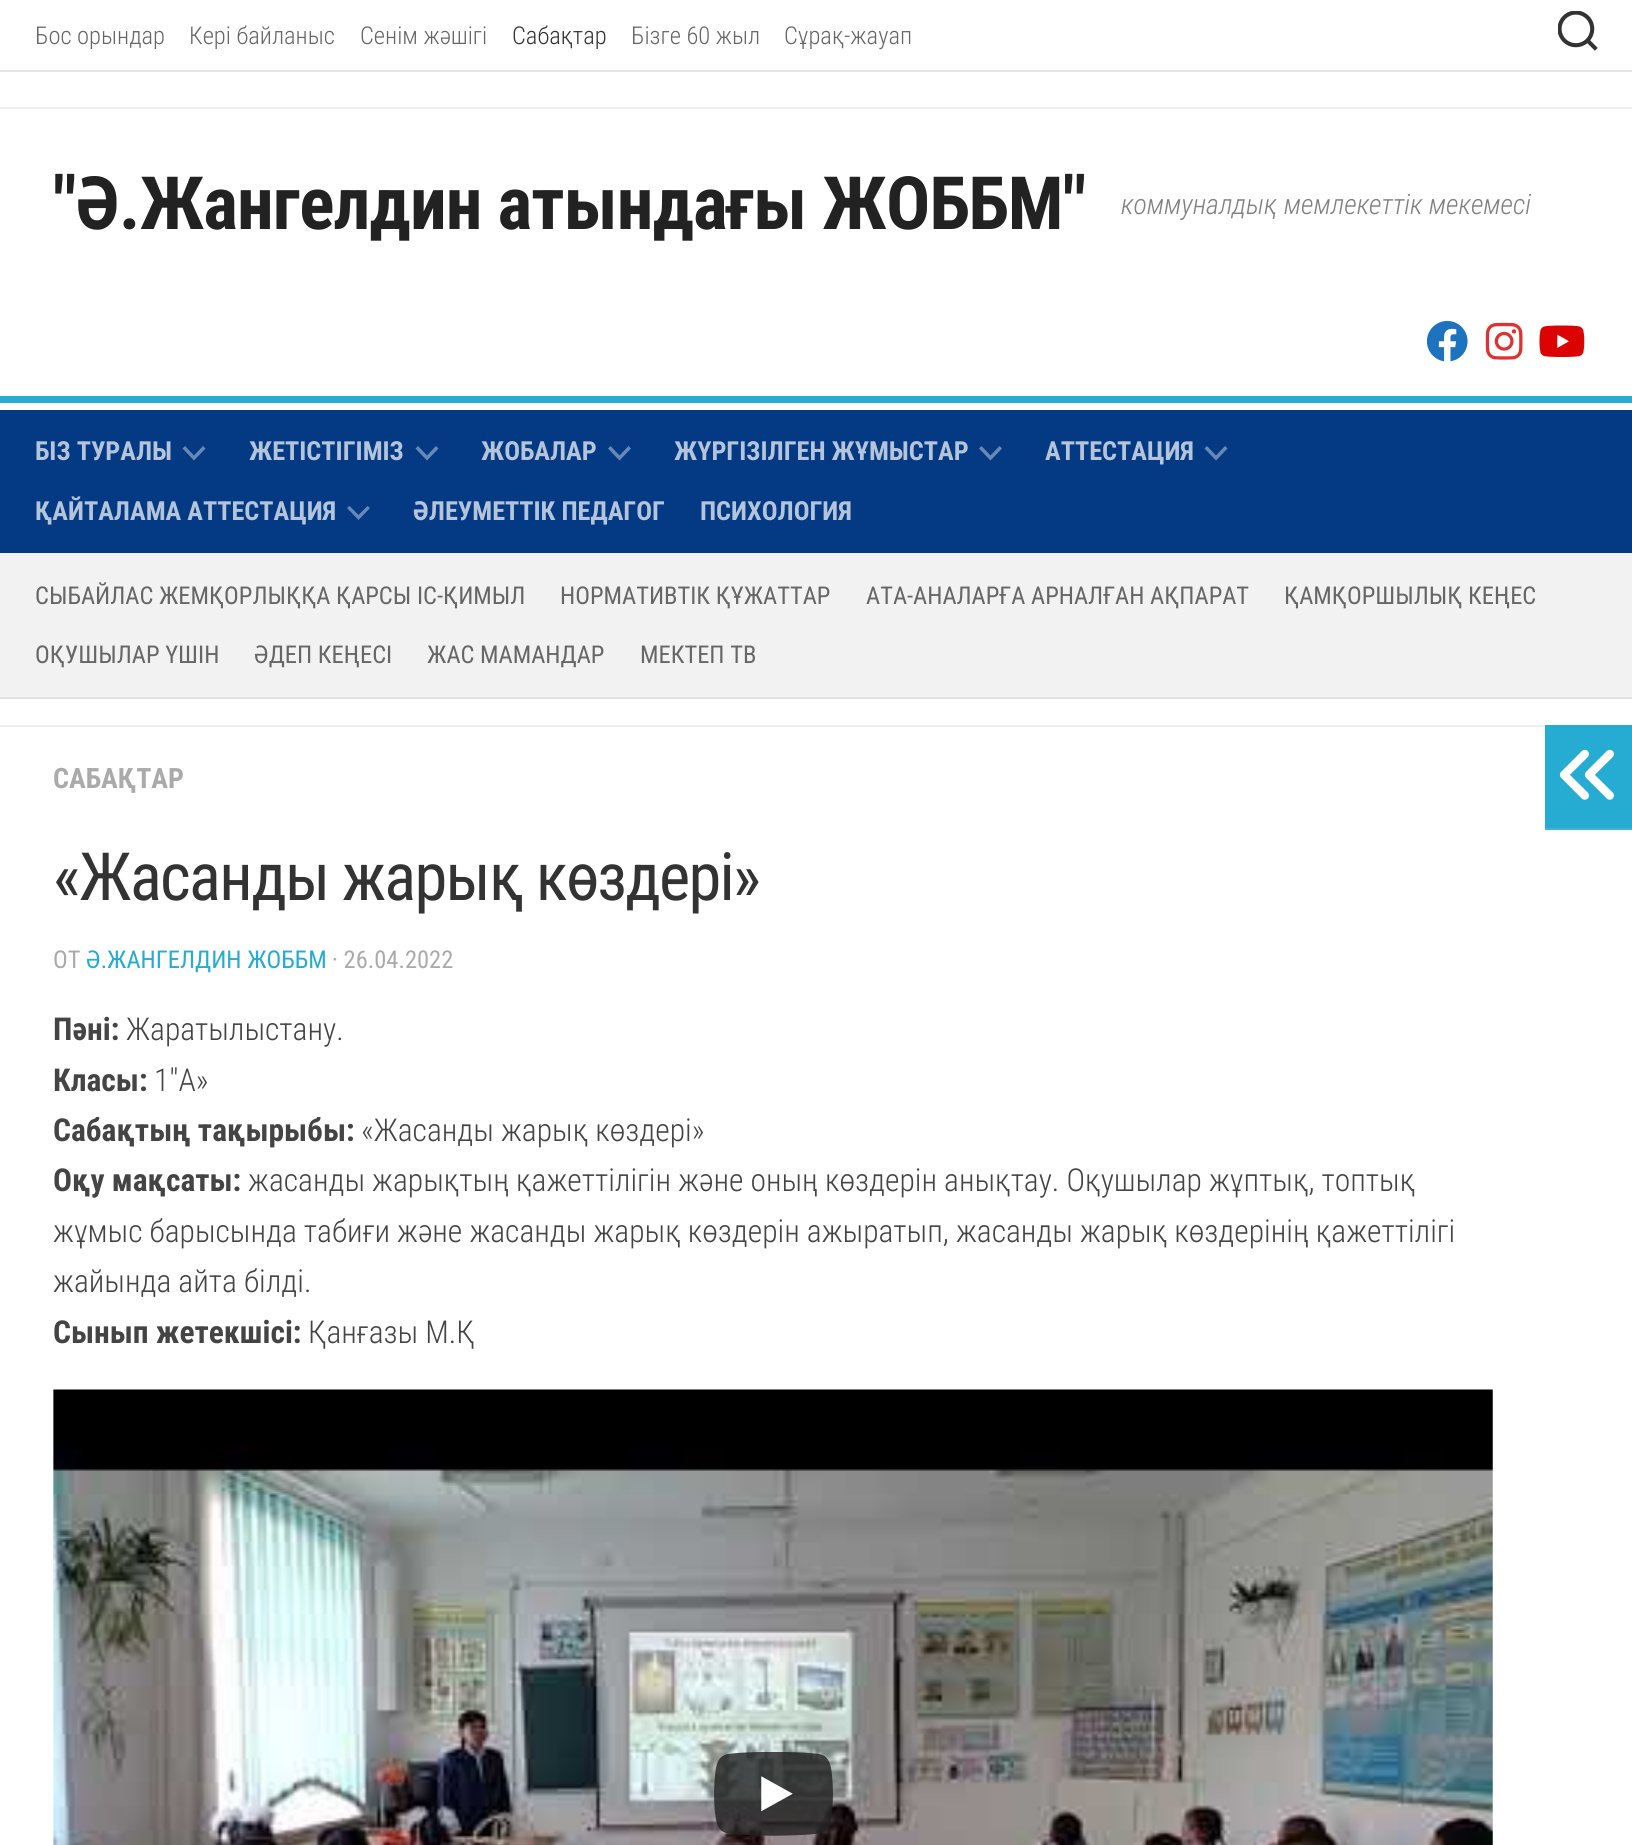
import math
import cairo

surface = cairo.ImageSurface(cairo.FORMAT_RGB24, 1632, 1845)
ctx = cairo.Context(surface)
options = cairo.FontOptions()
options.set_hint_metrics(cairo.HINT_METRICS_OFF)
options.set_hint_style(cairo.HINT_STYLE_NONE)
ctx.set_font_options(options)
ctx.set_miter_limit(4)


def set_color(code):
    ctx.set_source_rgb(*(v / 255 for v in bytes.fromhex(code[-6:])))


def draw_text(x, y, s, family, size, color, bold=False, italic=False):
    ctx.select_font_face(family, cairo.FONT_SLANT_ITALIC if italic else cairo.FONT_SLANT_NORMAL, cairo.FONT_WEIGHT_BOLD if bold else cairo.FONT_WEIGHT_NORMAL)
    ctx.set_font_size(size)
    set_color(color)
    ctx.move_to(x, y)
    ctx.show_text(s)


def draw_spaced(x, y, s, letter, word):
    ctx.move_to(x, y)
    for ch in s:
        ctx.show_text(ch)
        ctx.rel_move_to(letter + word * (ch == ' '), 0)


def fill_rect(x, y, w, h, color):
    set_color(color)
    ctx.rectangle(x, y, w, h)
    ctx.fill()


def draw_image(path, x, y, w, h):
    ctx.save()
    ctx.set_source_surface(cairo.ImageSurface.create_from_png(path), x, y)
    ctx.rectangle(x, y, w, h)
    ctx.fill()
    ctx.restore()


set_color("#ffffff")
ctx.paint()
fill_rect(0, 70, 1632, 2, "#e5e5e5")
draw_text(35, 44, "Бос орындар", "Roboto Condensed Light", 24.5, "#666666")
draw_text(189, 44, "Кері байланыс", "Roboto Condensed Light", 24.5, "#666666")
draw_text(360, 44, "Сенім жәшігі", "Roboto Condensed Light", 24.5, "#666666")
draw_text(512, 44, "Сабақтар", "Roboto Condensed Light", 24.5, "#333333")
draw_text(631, 44, "Бізге 60 жыл", "Roboto Condensed Light", 24.5, "#666666")
draw_text(784, 44, "Сұрақ-жауап", "Roboto Condensed Light", 24.5, "#666666")
draw_image("assets/img1.png", 1558, 11, 40, 40)
fill_rect(0, 107, 1632, 2, "#eeeeee")
fill_rect(0, 396, 1632, 7, "#26abd3")
ctx.select_font_face("Roboto Condensed", cairo.FONT_SLANT_NORMAL, cairo.FONT_WEIGHT_BOLD)
ctx.set_font_size(73.5)
set_color("#222222")
draw_spaced(53, 229, "\"Ә.Жангелдин атындағы ЖОББМ\"", -0.9, 0)
draw_text(1121, 214, "коммуналдық мемлекеттік мекемесі", "Roboto Condensed Light", 28, "#808080", italic=True)
draw_image("assets/img2.png", 1426, 320, 42, 42)
draw_image("assets/img3.png", 1485, 322, 38, 38)
draw_image("assets/img4.png", 1539, 325, 46, 32)
fill_rect(0, 410, 1632, 143, "#043a84")
draw_text(35, 460, "БІЗ ТУРАЛЫ", "Roboto Condensed", 26.25, "#b4c4da", bold=True)
set_color("#6889b5")
ctx.set_fill_rule(cairo.FILL_RULE_EVEN_ODD)
ctx.new_path()
ctx.move_to(194, 455.5)
ctx.line_to(203, 446)
ctx.line_to(205.5, 448.5)
ctx.line_to(194, 460.5)
ctx.line_to(182.5, 448.5)
ctx.line_to(185, 446)
ctx.close_path()
ctx.fill()
draw_text(249, 460, "ЖЕТІСТІГІМІЗ", "Roboto Condensed", 26.25, "#b4c4da", bold=True)
set_color("#6889b5")
ctx.new_path()
ctx.move_to(427, 455.5)
ctx.line_to(436, 446)
ctx.line_to(438.5, 448.5)
ctx.line_to(427, 460.5)
ctx.line_to(415.5, 448.5)
ctx.line_to(418, 446)
ctx.close_path()
ctx.fill()
draw_text(481, 460, "ЖОБАЛАР", "Roboto Condensed", 26.25, "#b4c4da", bold=True)
set_color("#6889b5")
ctx.new_path()
ctx.move_to(619.5, 455.5)
ctx.line_to(628.5, 446)
ctx.line_to(631, 448.5)
ctx.line_to(619.5, 460.5)
ctx.line_to(608, 448.5)
ctx.line_to(610.5, 446)
ctx.close_path()
ctx.fill()
draw_text(674, 460, "ЖҮРГІЗІЛГЕН ЖҰМЫСТАР", "Roboto Condensed", 26.25, "#b4c4da", bold=True)
set_color("#6889b5")
ctx.new_path()
ctx.move_to(990.5, 455.5)
ctx.line_to(999.5, 446)
ctx.line_to(1002, 448.5)
ctx.line_to(990.5, 460.5)
ctx.line_to(979, 448.5)
ctx.line_to(981.5, 446)
ctx.close_path()
ctx.fill()
draw_text(1045, 460, "АТТЕСТАЦИЯ", "Roboto Condensed", 26.25, "#b4c4da", bold=True)
set_color("#6889b5")
ctx.new_path()
ctx.move_to(1216, 455.5)
ctx.line_to(1225, 446)
ctx.line_to(1227.5, 448.5)
ctx.line_to(1216, 460.5)
ctx.line_to(1204.5, 448.5)
ctx.line_to(1207, 446)
ctx.close_path()
ctx.fill()
draw_text(35, 520, "ҚАЙТАЛАМА АТТЕСТАЦИЯ", "Roboto Condensed", 26.25, "#b4c4da", bold=True)
set_color("#6889b5")
ctx.new_path()
ctx.move_to(358.5, 515)
ctx.line_to(367.5, 506)
ctx.line_to(370, 508)
ctx.line_to(358.5, 520)
ctx.line_to(347, 508)
ctx.line_to(349.5, 506)
ctx.close_path()
ctx.fill()
draw_text(413, 520, "ӘЛЕУМЕТТІК ПЕДАГОГ", "Roboto Condensed", 26.25, "#b4c4da", bold=True)
draw_text(700, 520, "ПСИХОЛОГИЯ", "Roboto Condensed", 26.25, "#b4c4da", bold=True)
fill_rect(0, 553, 1632, 144, "#f2f2f2")
fill_rect(0, 697, 1632, 2, "#e1e1e1")
draw_text(35, 604, "СЫБАЙЛАС ЖЕМҚОРЛЫҚҚА ҚАРСЫ ІС-ҚИМЫЛ", "Roboto Condensed", 24.5, "#666666")
draw_text(560, 604, "НОРМАТИВТІК ҚҰЖАТТАР", "Roboto Condensed", 24.5, "#666666")
draw_text(866, 604, "АТА-АНАЛАРҒА АРНАЛҒАН АҚПАРАТ", "Roboto Condensed", 24.5, "#666666")
draw_text(1284, 604, "ҚАМҚОРШЫЛЫҚ КЕҢЕС", "Roboto Condensed", 24.5, "#666666")
draw_text(35, 663, "ОҚУШЫЛАР ҮШІН", "Roboto Condensed", 24.5, "#666666")
draw_text(254, 663, "ӘДЕП КЕҢЕСІ", "Roboto Condensed", 24.5, "#666666")
draw_text(427, 663, "ЖАС МАМАНДАР", "Roboto Condensed", 24.5, "#666666")
draw_text(640, 663, "МЕКТЕП ТВ", "Roboto Condensed", 24.5, "#666666")
fill_rect(0, 725, 1545, 2, "#eeeeee")
draw_text(53, 788, "САБАҚТАР", "Roboto Condensed", 28, "#aaaaaa", bold=True)
ctx.select_font_face("Roboto Condensed")
ctx.set_font_size(66.5)
set_color("#333333")
draw_spaced(53, 900, "«Жасанды жарық көздері»", -1.75, 0)
draw_text(53, 968, "ОТ", "Roboto Condensed", 24.5, "#aaaaaa")
draw_text(86, 968, "Ә.ЖАНГЕЛДИН ЖОББМ", "Roboto Condensed", 24.5, "#26abd3")
draw_text(332, 968, "· 26.04.2022", "Roboto Condensed", 24.5, "#aaaaaa")
draw_text(53, 1040, "Пәні:", "Roboto Condensed", 31.5, "#444444", bold=True)
draw_text(126, 1040, "Жаратылыстану.", "Roboto Condensed Light", 31.5, "#444444")
draw_text(53, 1091, "Класы:", "Roboto Condensed", 31.5, "#444444", bold=True)
draw_text(154, 1091, "1″А»", "Roboto Condensed Light", 31.5, "#444444")
draw_text(53, 1141, "Сабақтың тақырыбы:", "Roboto Condensed", 31.5, "#444444", bold=True)
draw_text(361, 1141, "«Жасанды жарық көздері»", "Roboto Condensed Light", 31.5, "#444444")
draw_text(53, 1191, "Оқу мақсаты:", "Roboto Condensed", 31.5, "#444444", bold=True)
draw_text(248, 1191, "жасанды жарықтың қажеттілігін және оның көздерін анықтау. Оқушылар жұптық, топтық", "Roboto Condensed Light", 31.5, "#444444")
draw_text(53, 1242, "жұмыс барысында табиғи және жасанды жарық көздерін ажыратып, жасанды жарық көздерінің қажеттілігі", "Roboto Condensed Light", 31.5, "#444444")
draw_text(53, 1292, "жайында айта білді.", "Roboto Condensed Light", 31.5, "#444444")
draw_text(53, 1343, "Сынып жетекшісі:", "Roboto Condensed", 31.5, "#444444", bold=True)
draw_text(308, 1343, "Қанғазы М.Қ", "Roboto Condensed Light", 31.5, "#444444")
draw_image("assets/img5.png", 53, 1389, 1440, 456)
draw_image("assets/img6.png", 714, 1752, 119, 84)
fill_rect(1545, 725, 87, 103, "#26abd3")
fill_rect(1545, 828, 87, 2, "#3cb3d7")
draw_image("assets/img7.png", 1559, 749, 55, 51)
surface.write_to_png("output.png")
